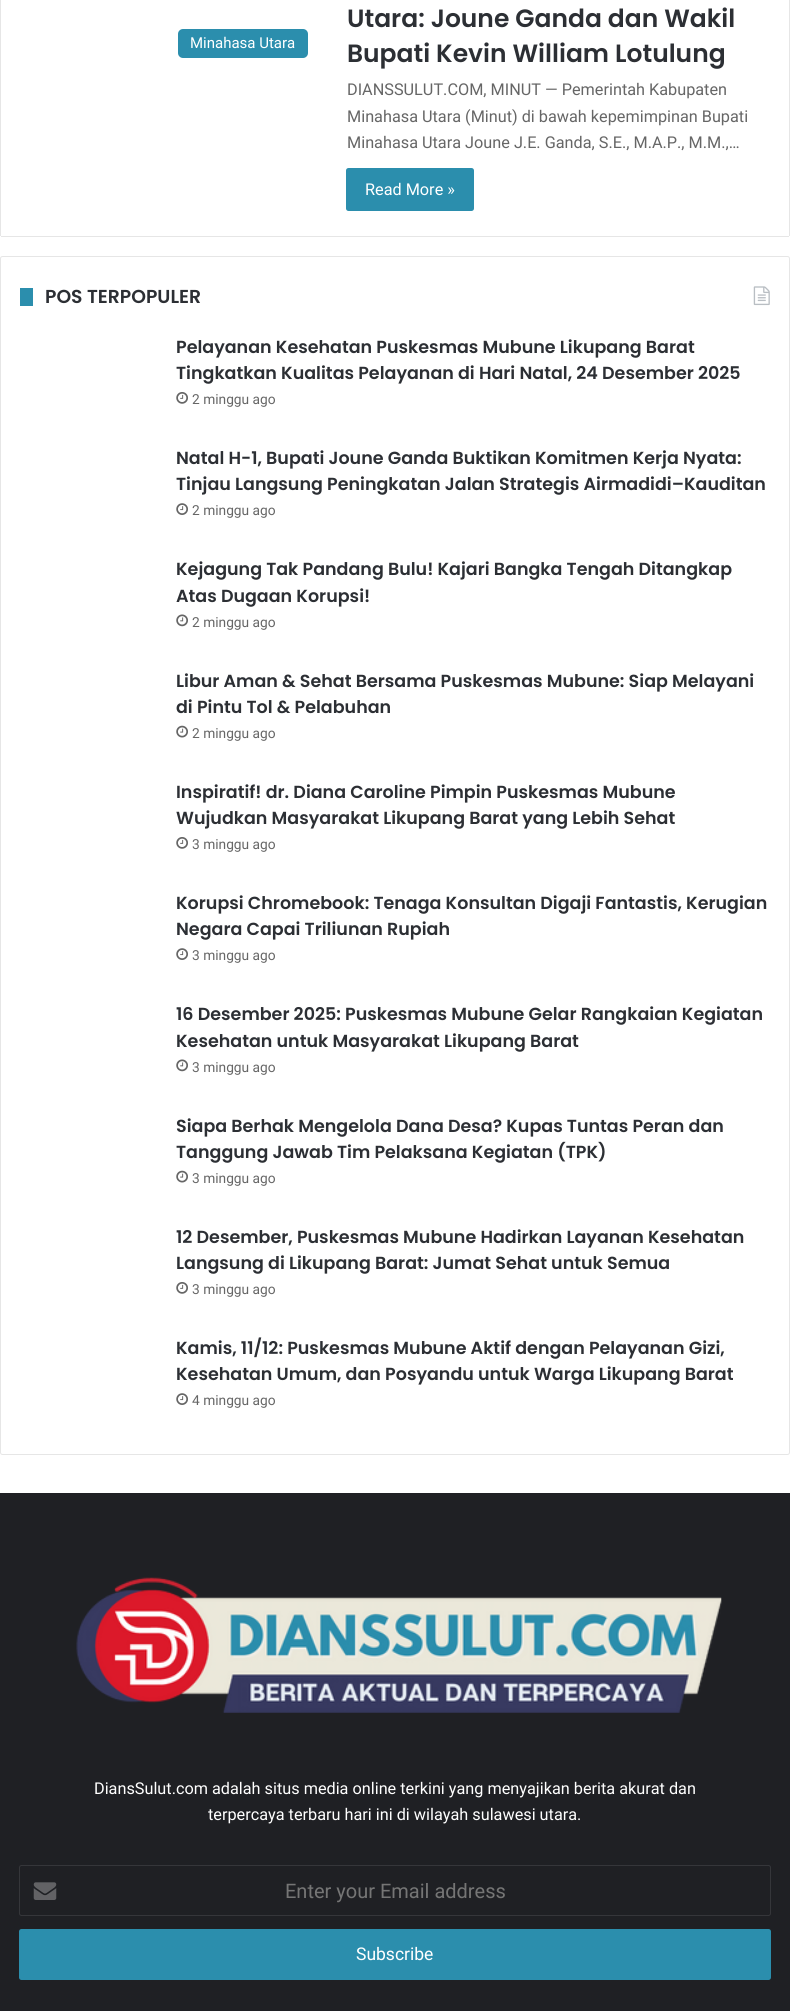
import math
import cairo

surface = cairo.ImageSurface(cairo.FORMAT_RGB24, 790, 2011)
ctx = cairo.Context(surface)
options = cairo.FontOptions()
options.set_hint_metrics(cairo.HINT_METRICS_OFF)
options.set_hint_style(cairo.HINT_STYLE_NONE)
ctx.set_font_options(options)
ctx.set_miter_limit(4)


def set_color(code):
    ctx.set_source_rgb(*(v / 255 for v in bytes.fromhex(code[-6:])))


def draw_text(x, y, s, family, size, color, bold=False, italic=False):
    ctx.select_font_face(family, cairo.FONT_SLANT_ITALIC if italic else cairo.FONT_SLANT_NORMAL, cairo.FONT_WEIGHT_BOLD if bold else cairo.FONT_WEIGHT_NORMAL)
    ctx.set_font_size(size)
    set_color(color)
    ctx.move_to(x, y)
    ctx.show_text(s)


def fill_rect(x, y, w, h, color):
    set_color(color)
    ctx.rectangle(x, y, w, h)
    ctx.fill()


def rounded_rect(x, y, w, h, r):
    ctx.new_sub_path()
    for i, (u, v) in enumerate([(x + w - r, y + h - r), (x + r, y + h - r), (x + r, y + r), (x + w - r, y + r)]):
        ctx.arc(u, v, r, i * math.pi / 2, (i + 1) * math.pi / 2)
    ctx.close_path()


def draw_image(path, x, y, w, h):
    ctx.save()
    ctx.set_source_surface(cairo.ImageSurface.create_from_png(path), x, y)
    ctx.rectangle(x, y, w, h)
    ctx.fill()
    ctx.restore()


set_color("#ffffff")
ctx.paint()
fill_rect(789, 0, 1, 236, "#e6e6e6")
fill_rect(1, 236, 788, 1, "#e6e6e6")
fill_rect(0, 0, 1, 236, "#e6e6e6")
set_color("#2b8ead")
rounded_rect(178, 29, 130, 29, 5)
ctx.fill()
draw_text(190, 48, "Minahasa Utara", "Roboto", 15, "#ffffff")
draw_text(347, 27, "Utara: Joune Ganda dan Wakil", "Poppins SemiBold", 25, "#2c2f34")
draw_text(347, 62, "Bupati Kevin William Lotulung", "Poppins SemiBold", 25, "#2c2f34")
draw_text(347, 95, "DIANSSULUT.COM, MINUT — Pemerintah Kabupaten", "Roboto", 16.25, "#666666")
draw_text(347, 122, "Minahasa Utara (Minut) di bawah kepemimpinan Bupati", "Roboto", 16.25, "#666666")
draw_text(347, 148, "Minahasa Utara Joune J.E. Ganda, S.E., M.A.P., M.M.,…", "Roboto", 16.25, "#666666")
set_color("#2b8ead")
rounded_rect(346, 168, 128, 43, 2.5)
ctx.fill()
draw_text(365, 195, "Read More »", "Roboto", 16.25, "#ffffff")
rounded_rect(0.5, 256.5, 789, 1198, 2)
set_color("#e6e6e6")
ctx.set_line_width(1)
ctx.stroke()
fill_rect(20, 288, 13, 18, "#2b8ead")
draw_text(45, 303, "POS TERPOPULER", "Poppins SemiBold", 18.75, "#2c2f34")
draw_image("assets/img1.png", 753, 286, 17, 20)
draw_text(176, 353, "Pelayanan Kesehatan Puskesmas Mubune Likupang Barat", "Poppins SemiBold", 17.5, "#2c2f34")
draw_text(176, 379, "Tingkatkan Kualitas Pelayanan di Hari Natal, 24 Desember 2025", "Poppins SemiBold", 17.5, "#2c2f34")
draw_image("assets/img2.png", 176, 392, 12, 12)
draw_text(192, 404, "2 minggu ago", "Roboto", 13.75, "#666666")
draw_text(176, 464, "Natal H-1, Bupati Joune Ganda Buktikan Komitmen Kerja Nyata:", "Poppins SemiBold", 17.5, "#2c2f34")
draw_text(176, 490, "Tinjau Langsung Peningkatan Jalan Strategis Airmadidi–Kauditan", "Poppins SemiBold", 17.5, "#2c2f34")
draw_image("assets/img3.png", 176, 503, 12, 12)
draw_text(192, 515, "2 minggu ago", "Roboto", 13.75, "#666666")
draw_text(176, 575, "Kejagung Tak Pandang Bulu! Kajari Bangka Tengah Ditangkap", "Poppins SemiBold", 17.5, "#2c2f34")
draw_text(176, 602, "Atas Dugaan Korupsi!", "Poppins SemiBold", 17.5, "#2c2f34")
draw_image("assets/img4.png", 176, 614, 12, 13)
draw_text(192, 627, "2 minggu ago", "Roboto", 13.75, "#666666")
draw_text(176, 687, "Libur Aman & Sehat Bersama Puskesmas Mubune: Siap Melayani", "Poppins SemiBold", 17.5, "#2c2f34")
draw_text(176, 713, "di Pintu Tol & Pelabuhan", "Poppins SemiBold", 17.5, "#2c2f34")
draw_image("assets/img5.png", 176, 725, 12, 13)
draw_text(192, 738, "2 minggu ago", "Roboto", 13.75, "#666666")
draw_text(176, 798, "Inspiratif! dr. Diana Caroline Pimpin Puskesmas Mubune", "Poppins SemiBold", 17.5, "#2c2f34")
draw_text(176, 824, "Wujudkan Masyarakat Likupang Barat yang Lebih Sehat", "Poppins SemiBold", 17.5, "#2c2f34")
draw_image("assets/img2.png", 176, 837, 12, 12)
draw_text(192, 849, "3 minggu ago", "Roboto", 13.75, "#666666")
draw_text(176, 909, "Korupsi Chromebook: Tenaga Konsultan Digaji Fantastis, Kerugian", "Poppins SemiBold", 17.5, "#2c2f34")
draw_text(176, 935, "Negara Capai Triliunan Rupiah", "Poppins SemiBold", 17.5, "#2c2f34")
draw_image("assets/img3.png", 176, 948, 12, 12)
draw_text(192, 960, "3 minggu ago", "Roboto", 13.75, "#666666")
draw_text(176, 1020, "16 Desember 2025: Puskesmas Mubune Gelar Rangkaian Kegiatan", "Poppins SemiBold", 17.5, "#2c2f34")
draw_text(176, 1047, "Kesehatan untuk Masyarakat Likupang Barat", "Poppins SemiBold", 17.5, "#2c2f34")
draw_image("assets/img4.png", 176, 1059, 12, 13)
draw_text(192, 1072, "3 minggu ago", "Roboto", 13.75, "#666666")
draw_text(176, 1132, "Siapa Berhak Mengelola Dana Desa? Kupas Tuntas Peran dan", "Poppins SemiBold", 17.5, "#2c2f34")
draw_text(176, 1158, "Tanggung Jawab Tim Pelaksana Kegiatan (TPK)", "Poppins SemiBold", 17.5, "#2c2f34")
draw_image("assets/img5.png", 176, 1170, 12, 13)
draw_text(192, 1183, "3 minggu ago", "Roboto", 13.75, "#666666")
draw_text(176, 1243, "12 Desember, Puskesmas Mubune Hadirkan Layanan Kesehatan", "Poppins SemiBold", 17.5, "#2c2f34")
draw_text(176, 1269, "Langsung di Likupang Barat: Jumat Sehat untuk Semua", "Poppins SemiBold", 17.5, "#2c2f34")
draw_image("assets/img2.png", 176, 1282, 12, 12)
draw_text(192, 1294, "3 minggu ago", "Roboto", 13.75, "#666666")
draw_text(176, 1354, "Kamis, 11/12: Puskesmas Mubune Aktif dengan Pelayanan Gizi,", "Poppins SemiBold", 17.5, "#2c2f34")
draw_text(176, 1380, "Kesehatan Umum, dan Posyandu untuk Warga Likupang Barat", "Poppins SemiBold", 17.5, "#2c2f34")
draw_image("assets/img3.png", 176, 1393, 12, 12)
draw_text(192, 1405, "4 minggu ago", "Roboto", 13.75, "#666666")
fill_rect(0, 1493, 790, 518, "#1f2024")
draw_image("assets/img6.png", 76, 1577, 646, 136)
draw_text(94, 1794, "DiansSulut.com adalah situs media online terkini yang menyajikan berita akurat dan", "Roboto", 16.25, "#ffffff")
draw_text(208, 1820, "terpercaya terbaru hari ini di wilayah sulawesi utara.", "Roboto", 16.25, "#ffffff")
rounded_rect(19.5, 1865.5, 751, 50, 2)
set_color("#35363a")
ctx.stroke()
draw_image("assets/img7.png", 33, 1882, 24, 18)
draw_text(285, 1898, "Enter your Email address", "Roboto", 20, "#757575")
set_color("#2b8ead")
rounded_rect(19, 1929, 752, 51, 2.5)
ctx.fill()
draw_text(356, 1960, "Subscribe", "Roboto", 17.5, "#ffffff")
surface.write_to_png("output.png")
